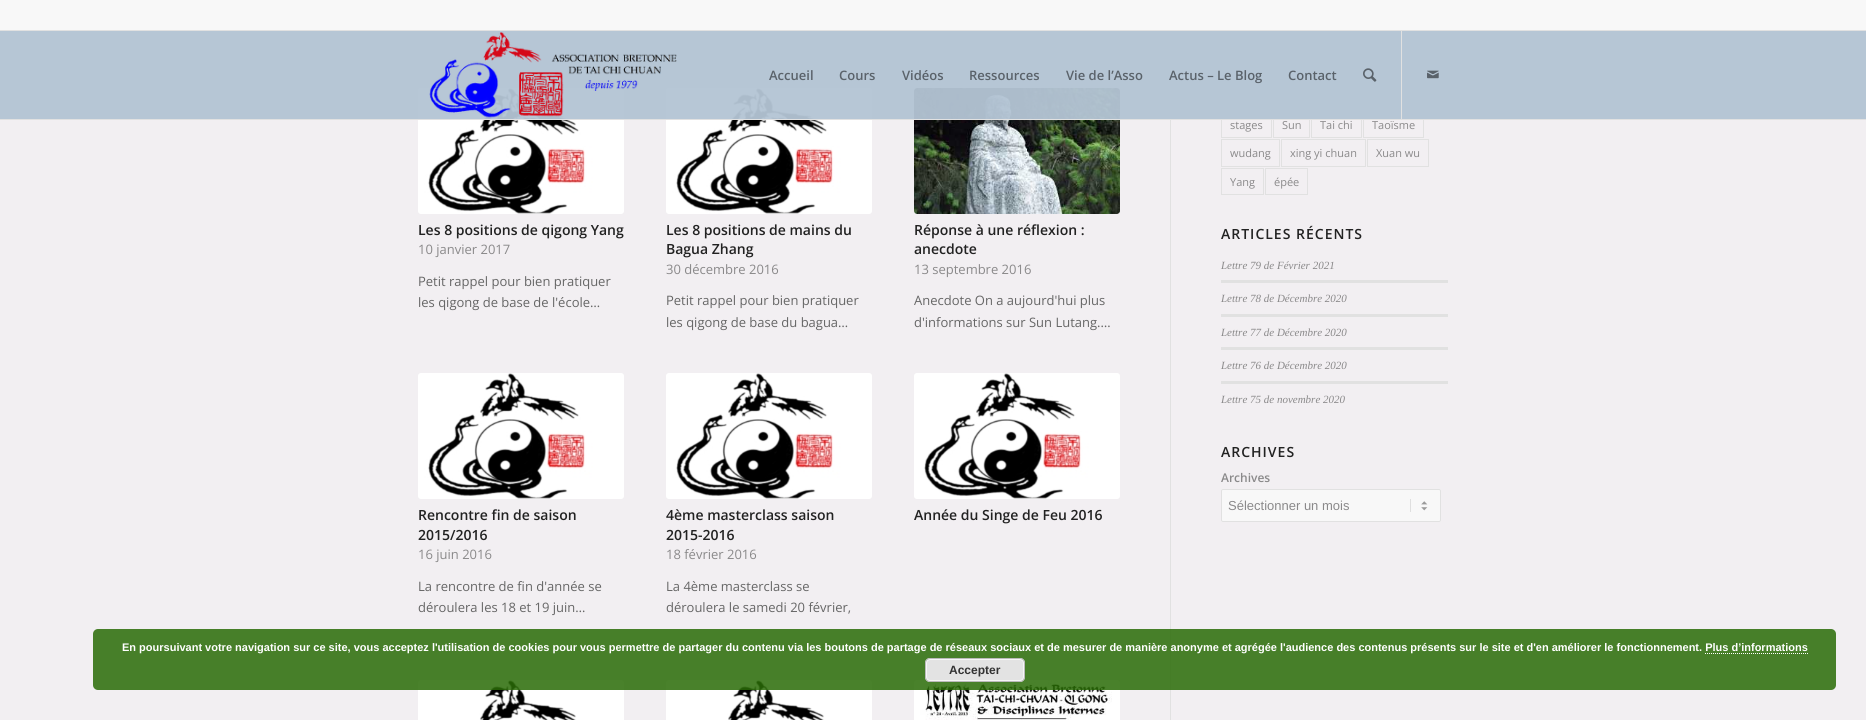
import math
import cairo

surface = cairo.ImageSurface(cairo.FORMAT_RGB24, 1866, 720)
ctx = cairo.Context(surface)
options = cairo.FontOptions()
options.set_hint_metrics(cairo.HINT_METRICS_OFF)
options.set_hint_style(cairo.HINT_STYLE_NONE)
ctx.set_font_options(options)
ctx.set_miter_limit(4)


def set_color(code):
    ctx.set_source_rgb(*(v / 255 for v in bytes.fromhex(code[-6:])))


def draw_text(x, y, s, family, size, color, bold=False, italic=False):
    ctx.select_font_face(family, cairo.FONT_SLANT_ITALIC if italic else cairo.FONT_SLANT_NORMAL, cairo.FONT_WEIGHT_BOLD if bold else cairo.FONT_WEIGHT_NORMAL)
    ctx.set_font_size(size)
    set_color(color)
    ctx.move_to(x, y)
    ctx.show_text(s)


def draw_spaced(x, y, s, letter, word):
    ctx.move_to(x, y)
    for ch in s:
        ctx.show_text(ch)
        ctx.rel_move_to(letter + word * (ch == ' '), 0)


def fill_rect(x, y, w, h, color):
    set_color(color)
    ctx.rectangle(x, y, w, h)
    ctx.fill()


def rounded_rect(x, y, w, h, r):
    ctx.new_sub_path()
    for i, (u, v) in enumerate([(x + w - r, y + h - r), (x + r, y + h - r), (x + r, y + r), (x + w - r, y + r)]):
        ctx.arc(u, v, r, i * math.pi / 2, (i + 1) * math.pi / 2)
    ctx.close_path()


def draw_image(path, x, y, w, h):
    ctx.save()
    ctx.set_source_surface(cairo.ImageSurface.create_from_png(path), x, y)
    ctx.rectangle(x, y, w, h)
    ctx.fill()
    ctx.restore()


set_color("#f2eff2")
ctx.paint()
ctx.rectangle(1221.5, 25.5, 41, 27)
set_color("#e1e1e1")
ctx.set_line_width(1)
ctx.stroke()
ctx.rectangle(1264.5, 25.5, 38, 27)
ctx.stroke()
ctx.rectangle(1304.5, 25.5, 78, 27)
ctx.stroke()
fill_rect(0, 0, 1866, 30, "#f8f8f8")
fill_rect(0, 30, 1866, 1, "#e1e1e1")
fill_rect(1170, 31, 1, 689, "#e1e1e1")
set_color("#f8f8f8")
rounded_rect(418, 88, 206, 126, 3)
ctx.fill()
draw_image("assets/img4.png", 418, 88, 206, 126)
rounded_rect(666, 88, 206, 126, 3)
ctx.fill()
draw_image("assets/img5.png", 666, 88, 206, 126)
rounded_rect(914, 88, 206, 126, 3)
ctx.fill()
draw_image("assets/img6.png", 914, 88, 206, 126)
ctx.rectangle(1221.5, 54.5, 73, 26)
set_color("#e1e1e1")
ctx.stroke()
ctx.rectangle(1296.5, 54.5, 61, 26)
ctx.stroke()
ctx.rectangle(1359.5, 54.5, 51, 26)
ctx.stroke()
ctx.rectangle(1221.5, 82.5, 58, 27)
ctx.stroke()
ctx.rectangle(1281.5, 82.5, 56, 27)
ctx.stroke()
ctx.rectangle(1339.5, 82.5, 64, 27)
ctx.stroke()
ctx.rectangle(1221.5, 111.5, 50, 26)
ctx.stroke()
ctx.rectangle(1273.5, 111.5, 36, 26)
ctx.stroke()
ctx.rectangle(1311.5, 111.5, 50, 26)
ctx.stroke()
ctx.rectangle(1363.5, 111.5, 60, 26)
ctx.stroke()
ctx.set_source_rgba(0.706, 0.769, 0.831, 0.95)
ctx.rectangle(0, 31, 1866, 88)
ctx.fill()
fill_rect(0, 119, 1866, 1, "#e1e1e1")
draw_image("assets/img1.png", 429, 32, 248, 87)
fill_rect(1401, 31, 1, 88, "#e1e1e1")
draw_text(769, 80, "Accueil", "Open Sans SemiBold", 13, "#5a626a")
draw_text(839, 80, "Cours", "Open Sans SemiBold", 13, "#5a626a")
draw_text(902, 80, "Vidéos", "Open Sans SemiBold", 13, "#5a626a")
draw_text(969, 80, "Ressources", "Open Sans SemiBold", 13, "#5a626a")
draw_text(1066, 80, "Vie de l’Asso", "Open Sans SemiBold", 13, "#5a626a")
draw_text(1169, 80, "Actus – Le Blog", "Open Sans SemiBold", 13, "#5a626a")
draw_text(1288, 80, "Contact", "Open Sans SemiBold", 13, "#5a626a")
draw_image("assets/img2.png", 1363, 68, 14, 14)
draw_image("assets/img3.png", 1427, 70, 12, 9)
draw_text(418, 235, "Les 8 positions de qigong Yang", "Open Sans SemiBold", 14, "#222222")
draw_text(418, 254, "10 janvier 2017", "Open Sans", 13, "#8a898a")
draw_text(418, 286, "Petit rappel pour bien pratiquer", "Open Sans", 13, "#666666")
draw_text(418, 307, "les qigong de base de l'école…", "Open Sans", 13, "#666666")
draw_text(666, 235, "Les 8 positions de mains du", "Open Sans SemiBold", 14, "#222222")
draw_text(666, 254, "Bagua Zhang", "Open Sans SemiBold", 14, "#222222")
draw_text(666, 274, "30 décembre 2016", "Open Sans", 13, "#8a898a")
draw_text(666, 305, "Petit rappel pour bien pratiquer", "Open Sans", 13, "#666666")
draw_text(666, 327, "les qigong de base du bagua…", "Open Sans", 13, "#666666")
draw_text(914, 235, "Réponse à une réflexion :", "Open Sans SemiBold", 14, "#222222")
draw_text(914, 254, "anecdote", "Open Sans SemiBold", 14, "#222222")
draw_text(914, 274, "13 septembre 2016", "Open Sans", 13, "#8a898a")
draw_text(914, 305, "Anecdote On a aujourd'hui plus", "Open Sans", 13, "#666666")
draw_text(914, 327, "d'informations sur Sun Lutang.…", "Open Sans", 13, "#666666")
set_color("#f8f8f8")
rounded_rect(418, 373, 206, 126, 3)
ctx.fill()
draw_image("assets/img4.png", 418, 373, 206, 126)
draw_text(418, 520, "Rencontre fin de saison", "Open Sans SemiBold", 14, "#222222")
draw_text(418, 540, "2015/2016", "Open Sans SemiBold", 14, "#222222")
draw_text(418, 559, "16 juin 2016", "Open Sans", 13, "#8a898a")
draw_text(418, 591, "La rencontre de fin d'année se", "Open Sans", 13, "#666666")
draw_text(418, 612, "déroulera les 18 et 19 juin…", "Open Sans", 13, "#666666")
set_color("#f8f8f8")
rounded_rect(666, 373, 206, 126, 3)
ctx.fill()
draw_image("assets/img5.png", 666, 373, 206, 126)
draw_text(666, 520, "4ème masterclass saison", "Open Sans SemiBold", 14, "#222222")
draw_text(666, 540, "2015-2016", "Open Sans SemiBold", 14, "#222222")
draw_text(666, 559, "18 février 2016", "Open Sans", 13, "#8a898a")
draw_text(666, 591, "La 4ème masterclass se", "Open Sans", 13, "#666666")
draw_text(666, 612, "déroulera le samedi 20 février,", "Open Sans", 13, "#666666")
set_color("#f8f8f8")
rounded_rect(914, 373, 206, 126, 3)
ctx.fill()
draw_image("assets/img4.png", 914, 373, 206, 126)
draw_text(914, 520, "Année du Singe de Feu 2016", "Open Sans SemiBold", 14, "#222222")
set_color("#f8f8f8")
rounded_rect(418, 680, 206, 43, 3)
ctx.fill()
draw_image("assets/img7.png", 418, 680, 206, 40)
rounded_rect(666, 680, 206, 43, 3)
ctx.fill()
draw_image("assets/img7.png", 666, 680, 206, 40)
rounded_rect(914, 680, 206, 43, 3)
ctx.fill()
draw_image("assets/img8.png", 914, 680, 206, 40)
draw_text(1230, 129, "stages", "Open Sans", 11, "#8a898a")
draw_text(1282, 129, "Sun", "Open Sans", 11, "#8a898a")
draw_text(1320, 129, "Tai chi", "Open Sans", 11, "#8a898a")
draw_text(1372, 129, "Taoïsme", "Open Sans", 11, "#8a898a")
ctx.rectangle(1221.5, 139.5, 58, 27)
set_color("#e1e1e1")
ctx.stroke()
draw_text(1230, 157, "wudang", "Open Sans", 11, "#8a898a")
ctx.rectangle(1281.5, 139.5, 84, 27)
set_color("#e1e1e1")
ctx.stroke()
draw_text(1290, 157, "xing yi chuan", "Open Sans", 11, "#8a898a")
ctx.rectangle(1367.5, 139.5, 61, 27)
set_color("#e1e1e1")
ctx.stroke()
draw_text(1376, 157, "Xuan wu", "Open Sans", 11, "#8a898a")
ctx.rectangle(1221.5, 168.5, 42, 26)
set_color("#e1e1e1")
ctx.stroke()
draw_text(1230, 186, "Yang", "Open Sans", 11, "#8a898a")
ctx.rectangle(1265.5, 168.5, 42, 26)
set_color("#e1e1e1")
ctx.stroke()
draw_text(1274, 186, "épée", "Open Sans", 11, "#8a898a")
ctx.select_font_face("Open Sans SemiBold")
ctx.set_font_size(14)
set_color("#222222")
draw_spaced(1221, 239, "ARTICLES RÉCENTS", 1, 0)
draw_text(1221, 269, "Lettre 79 de Février 2021", "Liberation Serif", 11, "#8a898a", italic=True)
fill_rect(1221, 280, 227, 3, "#e1e1e1")
draw_text(1221, 302, "Lettre 78 de Décembre 2020", "Liberation Serif", 11, "#8a898a", italic=True)
fill_rect(1221, 314, 227, 3, "#e1e1e1")
draw_text(1221, 336, "Lettre 77 de Décembre 2020", "Liberation Serif", 11, "#8a898a", italic=True)
fill_rect(1221, 347, 227, 3, "#e1e1e1")
draw_text(1221, 369, "Lettre 76 de Décembre 2020", "Liberation Serif", 11, "#8a898a", italic=True)
fill_rect(1221, 381, 227, 3, "#e1e1e1")
draw_text(1221, 403, "Lettre 75 de novembre 2020", "Liberation Serif", 11, "#8a898a", italic=True)
ctx.select_font_face("Open Sans SemiBold")
ctx.set_font_size(14)
set_color("#222222")
draw_spaced(1221, 457, "ARCHIVES", 1, 0)
draw_text(1221, 482, "Archives", "Open Sans SemiBold", 12, "#8a898a")
set_color("#f8f8f8")
rounded_rect(1221, 489, 220, 33, 2)
ctx.fill()
draw_image("assets/img9.png", 1410, 499, 18, 13)
rounded_rect(1221.5, 489.5, 219, 32, 1.5)
set_color("#e1e1e1")
ctx.stroke()
draw_text(1228, 510, "Sélectionner un mois", "Liberation Sans", 13, "#8a898a")
ctx.set_source_rgba(0.161, 0.42, 0.024, 0.85)
rounded_rect(93, 629, 1743, 61, 5)
ctx.fill()
draw_text(122, 651, "En poursuivant votre navigation sur ce site, vous acceptez l'utilisation de cookies pour vous permettre de partager du contenu via les boutons de partage de réseaux sociaux et de mesurer de manière anonyme et agrégée l'audience des contenus présents sur le site et d'en améliorer le fonctionnement. Plus d’informations", "Liberation Sans", 11, "#ffffff", bold=True)
ctx.new_path()
ctx.move_to(1705, 653.5)
ctx.line_to(1808, 653.5)
ctx.set_dash([1, 1])
ctx.stroke()
set_color("#e3e3e3")
rounded_rect(925, 658, 100, 24, 5)
ctx.fill()
rounded_rect(926.5, 659.5, 97, 21, 3.5)
set_color("#f6f6f6")
ctx.set_dash([])
ctx.stroke()
rounded_rect(925.5, 658.5, 99, 23, 4.5)
set_color("#bbbbbb")
ctx.stroke()
draw_text(949, 674, "Accepter", "Liberation Sans", 12, "#333333", bold=True)
surface.write_to_png("output.png")
